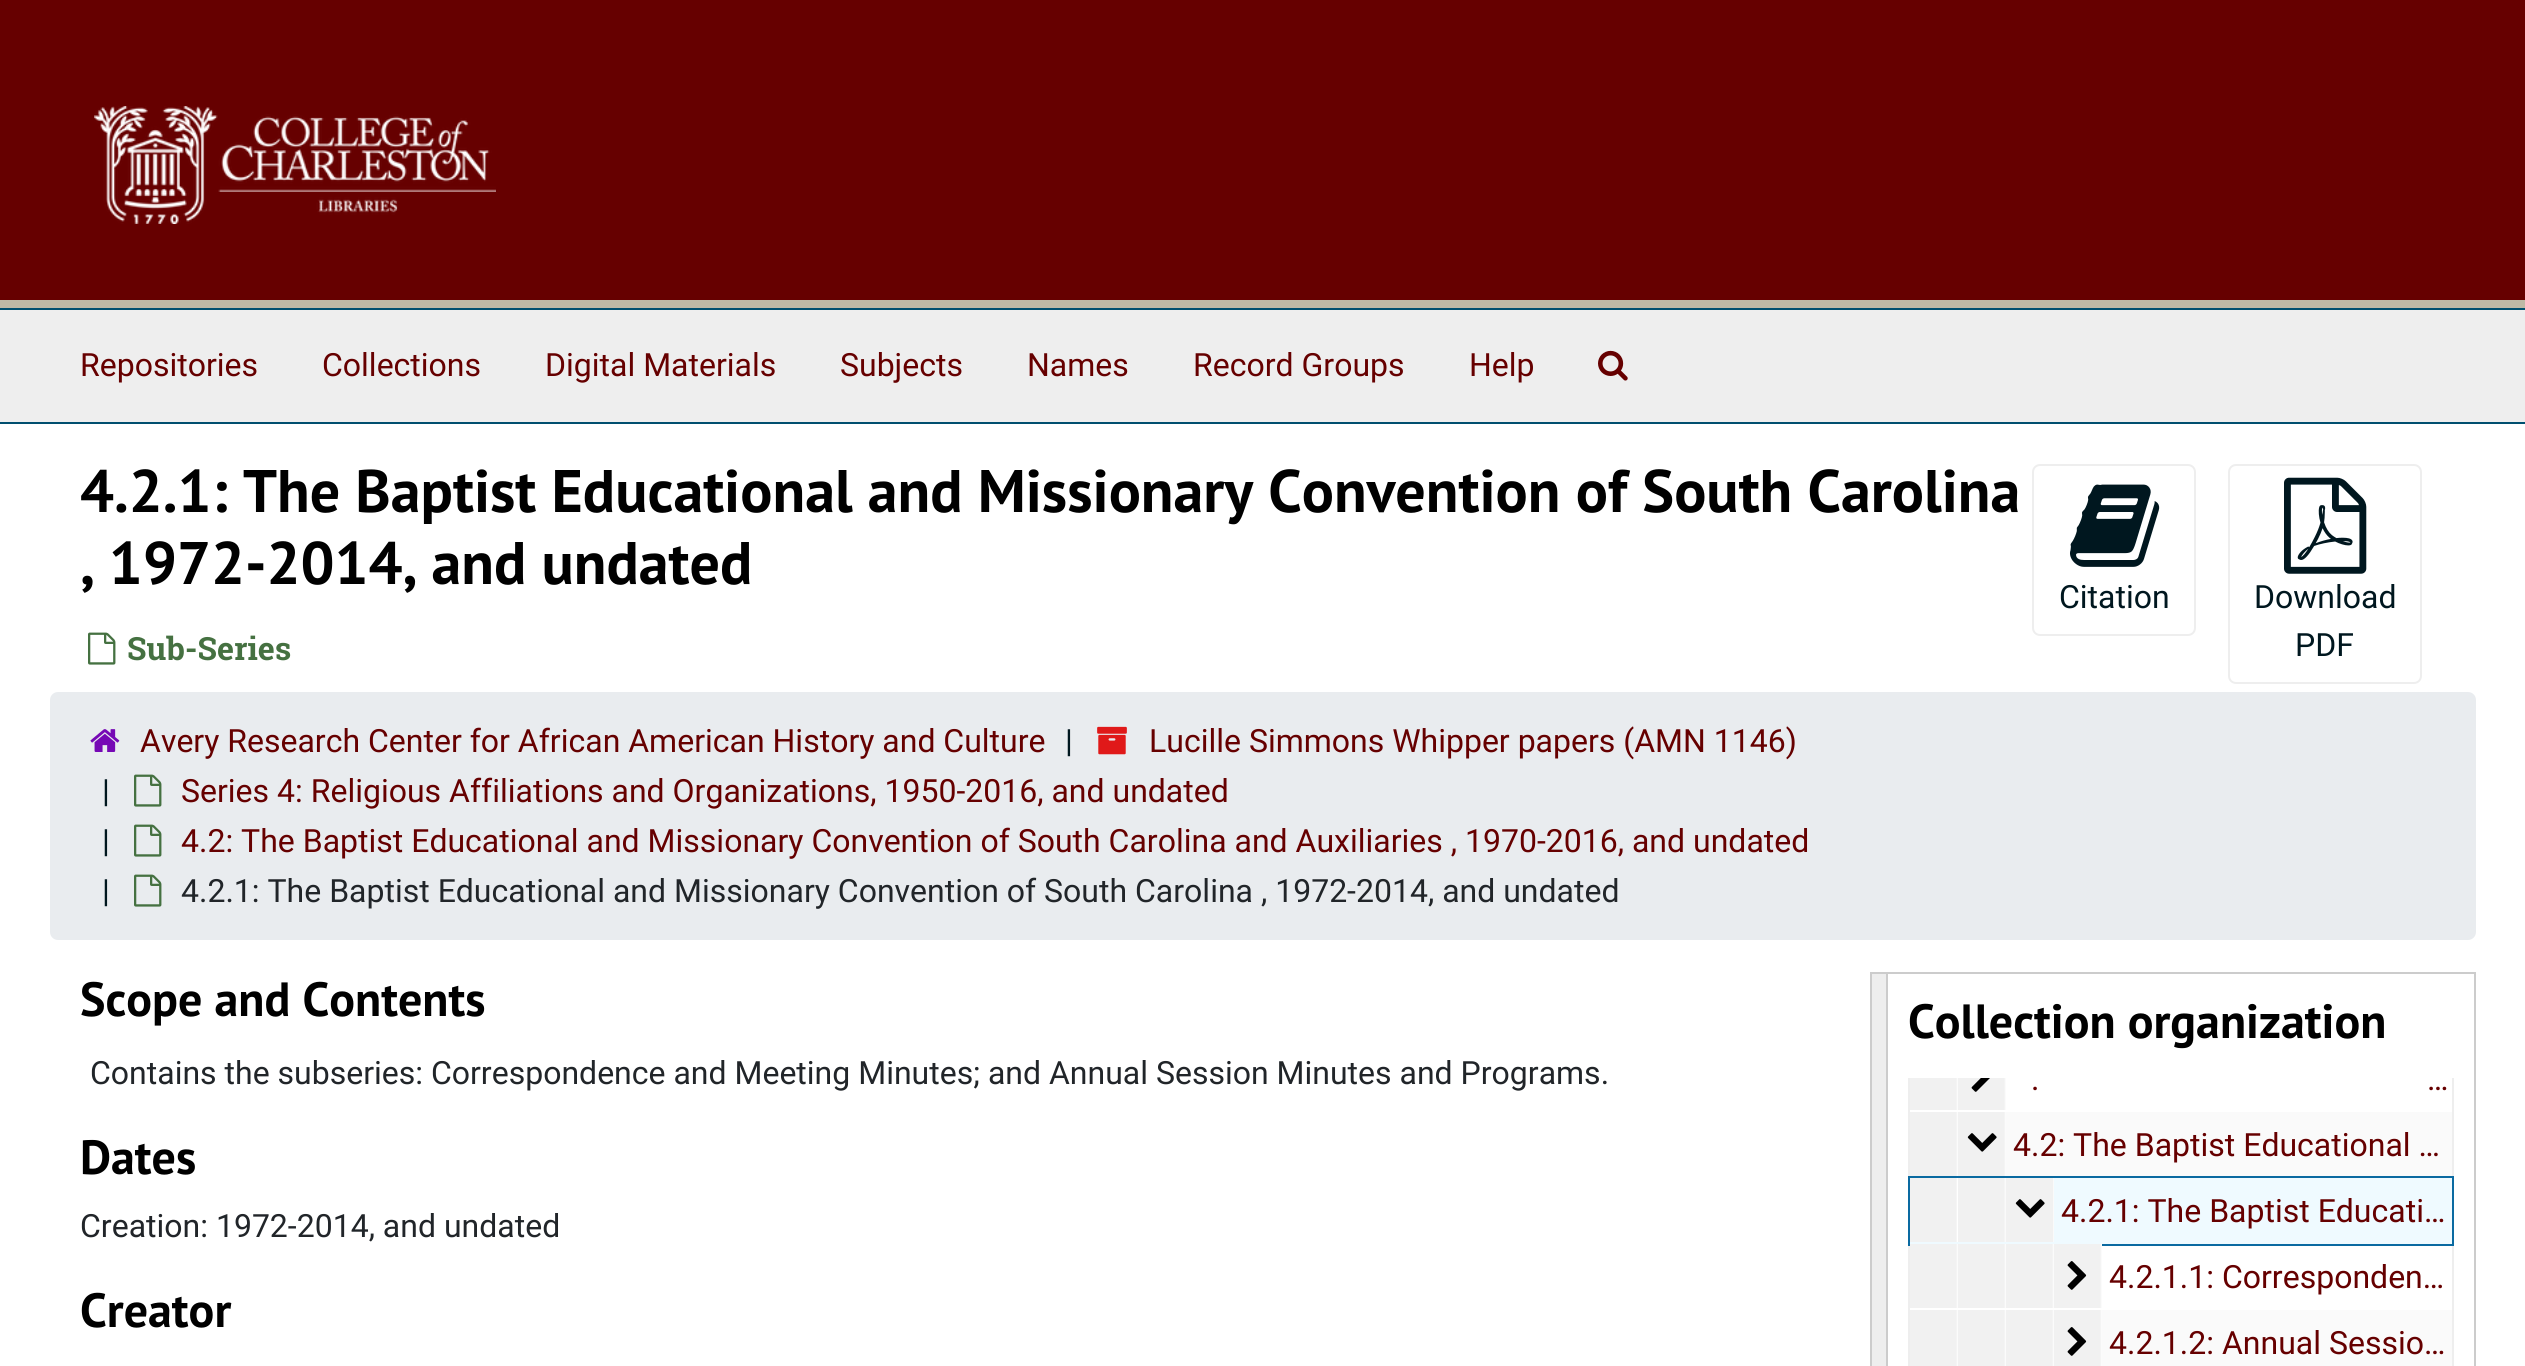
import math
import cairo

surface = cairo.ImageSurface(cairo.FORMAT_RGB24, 2525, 1366)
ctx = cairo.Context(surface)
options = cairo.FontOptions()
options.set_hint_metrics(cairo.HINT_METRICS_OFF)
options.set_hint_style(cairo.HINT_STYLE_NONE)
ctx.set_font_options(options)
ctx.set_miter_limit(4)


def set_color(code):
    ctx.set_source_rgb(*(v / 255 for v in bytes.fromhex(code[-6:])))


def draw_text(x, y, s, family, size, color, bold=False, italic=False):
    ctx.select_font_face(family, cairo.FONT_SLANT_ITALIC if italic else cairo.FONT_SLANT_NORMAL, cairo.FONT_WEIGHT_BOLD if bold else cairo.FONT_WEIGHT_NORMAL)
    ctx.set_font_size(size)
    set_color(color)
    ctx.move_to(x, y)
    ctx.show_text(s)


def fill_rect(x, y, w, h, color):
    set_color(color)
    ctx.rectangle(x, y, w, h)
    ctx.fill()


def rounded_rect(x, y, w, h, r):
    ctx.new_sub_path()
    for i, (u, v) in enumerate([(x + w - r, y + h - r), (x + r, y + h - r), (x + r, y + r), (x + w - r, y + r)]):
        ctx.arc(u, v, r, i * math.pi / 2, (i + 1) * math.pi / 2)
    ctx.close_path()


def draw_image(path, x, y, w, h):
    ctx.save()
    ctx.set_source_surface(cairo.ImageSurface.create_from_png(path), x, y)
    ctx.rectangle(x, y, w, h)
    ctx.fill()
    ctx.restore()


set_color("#ffffff")
ctx.paint()
fill_rect(0, 0, 2525, 300, "#660000")
fill_rect(0, 300, 2525, 8, "#beb9a6")
draw_image("assets/img1.png", 94, 106, 402, 118)
fill_rect(0, 310, 2525, 112, "#eeeeee")
fill_rect(0, 308, 2525, 2, "#004f6f")
fill_rect(0, 422, 2525, 2, "#004f6f")
draw_text(80, 376, "Repositories", "Roboto", 32, "#660000")
draw_text(322, 376, "Collections", "Roboto", 32, "#660000")
draw_text(545, 376, "Digital Materials", "Roboto", 32, "#660000")
draw_text(840, 376, "Subjects", "Roboto", 32, "#660000")
draw_text(1027, 376, "Names", "Roboto", 32, "#660000")
draw_text(1193, 376, "Record Groups", "Roboto", 32, "#660000")
draw_text(1469, 376, "Help", "Roboto", 32, "#660000")
draw_image("assets/img2.png", 1598, 350, 30, 31)
draw_text(80, 512, "4.2.1: The Baptist Educational and Missionary Convention of South Carolina", "PT Sans", 60, "#000000", bold=True)
draw_text(80, 584, ", 1972-2014, and undated", "PT Sans", 60, "#000000", bold=True)
draw_image("assets/img3.png", 88, 632, 28, 33)
draw_text(127, 660, "Sub-Series", "Roboto Slab", 32, "#457141", bold=True)
rounded_rect(2033, 465, 162, 170, 7)
set_color("#eeeeee")
ctx.stroke()
draw_image("assets/img4.png", 2070, 484, 90, 83)
draw_text(2059, 608, "Citation", "Roboto", 32, "#00171f")
rounded_rect(2229, 465, 192, 218, 7)
set_color("#eeeeee")
ctx.stroke()
draw_image("assets/img5.png", 2284, 477, 83, 97)
draw_text(2254, 608, "Download", "Roboto", 32, "#00171f")
draw_text(2295, 656, "PDF", "Roboto", 32, "#00171f")
set_color("#e9ecef")
rounded_rect(50, 692, 2426, 248, 8)
ctx.fill()
draw_image("assets/img6.png", 90, 729, 30, 23)
draw_text(140, 752, "Avery Research Center for African American History and Culture", "Roboto", 32, "#660000")
draw_text(1065, 752, "|", "Roboto", 32, "#00171f")
draw_image("assets/img7.png", 1097, 726, 30, 29)
draw_text(1149, 752, "Lucille Simmons Whipper papers (AMN 1146)", "Roboto", 32, "#660000")
draw_text(102, 802, "|", "Roboto", 32, "#00171f")
draw_image("assets/img8.png", 134, 774, 28, 33)
draw_text(181, 802, "Series 4: Religious Affiliations and Organizations, 1950-2016, and undated", "Roboto", 32, "#660000")
draw_text(102, 852, "|", "Roboto", 32, "#00171f")
draw_image("assets/img8.png", 134, 824, 28, 33)
draw_text(181, 852, "4.2: The Baptist Educational and Missionary Convention of South Carolina and Auxiliaries , 1970-2016, and undated", "Roboto", 32, "#660000")
draw_text(102, 902, "|", "Roboto", 32, "#00171f")
draw_image("assets/img8.png", 134, 874, 28, 33)
draw_text(181, 902, "4.2.1: The Baptist Educational and Missionary Convention of South Carolina , 1972-2014, and undated", "Roboto", 32, "#212529")
draw_text(80, 1016, "Scope and Contents", "PT Sans", 48, "#000000", bold=True)
draw_text(90, 1084, "Contains the subseries: Correspondence and Meeting Minutes; and Annual Session Minutes and Programs.", "Roboto", 32, "#212529")
draw_text(80, 1174, "Dates", "PT Sans", 48, "#000000", bold=True)
draw_text(80, 1237, "Creation: 1972-2014, and undated", "Roboto", 32, "#212529")
draw_text(80, 1327, "Creator", "PT Sans", 48, "#000000", bold=True)
ctx.rectangle(1871, 973, 604, 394)
set_color("#cccccc")
ctx.stroke()
fill_rect(1872, 974, 14, 392, "#eeeeee")
fill_rect(1886, 974, 2, 392, "#cccccc")
draw_text(1908, 1038, "Collection organization", "PT Sans", 48, "#000000", bold=True)
fill_rect(1908, 1078, 546, 288, "#eeeeee")
fill_rect(1910, 1078, 542, 34, "#ffffff")
gradient = cairo.LinearGradient(1910, 1078, 2006, 1078)
gradient.add_color_stop_rgba(0, 0.945, 0.945, 0.945, 1)
gradient.add_color_stop_rgba(0.48, 0.945, 0.945, 0.945, 1)
gradient.add_color_stop_rgba(0.5, 1, 1, 1, 1)
gradient.add_color_stop_rgba(0.5, 0.945, 0.945, 0.945, 1)
gradient.add_color_stop_rgba(0.98, 0.945, 0.945, 0.945, 1)
gradient.add_color_stop_rgba(1, 1, 1, 1, 1)
ctx.set_source(gradient)
ctx.rectangle(1910, 1078, 96, 32)
ctx.fill()
draw_image("assets/img9.png", 1971, 1078, 19, 14)
draw_text(2031, 1090, ".", "Roboto", 32, "#660000")
draw_text(2427, 1090, "…", "Roboto", 32, "#660000")
fill_rect(2006, 1112, 446, 64, "#fafafa")
gradient = cairo.LinearGradient(1910, 1144, 2006, 1144)
gradient.add_color_stop_rgba(0, 0.945, 0.945, 0.945, 1)
gradient.add_color_stop_rgba(0.48, 0.945, 0.945, 0.945, 1)
gradient.add_color_stop_rgba(0.5, 1, 1, 1, 1)
gradient.add_color_stop_rgba(0.5, 0.945, 0.945, 0.945, 1)
gradient.add_color_stop_rgba(0.98, 0.945, 0.945, 0.945, 1)
gradient.add_color_stop_rgba(1, 1, 1, 1, 1)
ctx.set_source(gradient)
ctx.rectangle(1910, 1112, 96, 64)
ctx.fill()
draw_image("assets/img10.png", 1967, 1133, 30, 19)
draw_text(2013, 1156, "4.2: The Baptist Educational …", "Roboto", 32, "#660000")
ctx.rectangle(1909, 1177, 544, 68)
set_color("#0a6aa1")
ctx.stroke()
fill_rect(1910, 1178, 542, 66, "#effaff")
gradient = cairo.LinearGradient(1910, 1210, 2054, 1210)
gradient.add_color_stop_rgba(0, 0.945, 0.945, 0.945, 1)
gradient.add_color_stop_rgba(0.32, 0.945, 0.945, 0.945, 1)
gradient.add_color_stop_rgba(0.33, 1, 1, 1, 1)
gradient.add_color_stop_rgba(0.33, 0.945, 0.945, 0.945, 1)
gradient.add_color_stop_rgba(0.65, 0.945, 0.945, 0.945, 1)
gradient.add_color_stop_rgba(0.67, 1, 1, 1, 1)
gradient.add_color_stop_rgba(0.67, 0.945, 0.945, 0.945, 1)
gradient.add_color_stop_rgba(0.99, 0.945, 0.945, 0.945, 1)
gradient.add_color_stop_rgba(1, 1, 1, 1, 1)
ctx.set_source(gradient)
ctx.rectangle(1910, 1178, 144, 64)
ctx.fill()
draw_image("assets/img10.png", 2015, 1199, 30, 19)
draw_text(2061, 1222, "4.2.1: The Baptist Educati…", "Roboto", 32, "#660000")
fill_rect(1910, 1246, 542, 64, "#ffffff")
gradient = cairo.LinearGradient(1910, 1276, 2102, 1276)
gradient.add_color_stop_rgba(0, 0.945, 0.945, 0.945, 1)
gradient.add_color_stop_rgba(0.24, 0.945, 0.945, 0.945, 1)
gradient.add_color_stop_rgba(0.25, 1, 1, 1, 1)
gradient.add_color_stop_rgba(0.25, 0.945, 0.945, 0.945, 1)
gradient.add_color_stop_rgba(0.49, 0.945, 0.945, 0.945, 1)
gradient.add_color_stop_rgba(0.5, 1, 1, 1, 1)
gradient.add_color_stop_rgba(0.5, 0.945, 0.945, 0.945, 1)
gradient.add_color_stop_rgba(0.74, 0.945, 0.945, 0.945, 1)
gradient.add_color_stop_rgba(0.75, 1, 1, 1, 1)
gradient.add_color_stop_rgba(0.75, 0.945, 0.945, 0.945, 1)
gradient.add_color_stop_rgba(0.99, 0.945, 0.945, 0.945, 1)
gradient.add_color_stop_rgba(1, 1, 1, 1, 1)
ctx.set_source(gradient)
ctx.rectangle(1910, 1244, 192, 64)
ctx.fill()
draw_image("assets/img11.png", 2067, 1261, 20, 29)
draw_text(2109, 1288, "4.2.1.1: Corresponden…", "Roboto", 32, "#660000")
fill_rect(2102, 1310, 350, 56, "#fafafa")
gradient = cairo.LinearGradient(1910, 1342, 2102, 1342)
gradient.add_color_stop_rgba(0, 0.945, 0.945, 0.945, 1)
gradient.add_color_stop_rgba(0.24, 0.945, 0.945, 0.945, 1)
gradient.add_color_stop_rgba(0.25, 1, 1, 1, 1)
gradient.add_color_stop_rgba(0.25, 0.945, 0.945, 0.945, 1)
gradient.add_color_stop_rgba(0.49, 0.945, 0.945, 0.945, 1)
gradient.add_color_stop_rgba(0.5, 1, 1, 1, 1)
gradient.add_color_stop_rgba(0.5, 0.945, 0.945, 0.945, 1)
gradient.add_color_stop_rgba(0.74, 0.945, 0.945, 0.945, 1)
gradient.add_color_stop_rgba(0.75, 1, 1, 1, 1)
gradient.add_color_stop_rgba(0.75, 0.945, 0.945, 0.945, 1)
gradient.add_color_stop_rgba(0.99, 0.945, 0.945, 0.945, 1)
gradient.add_color_stop_rgba(1, 1, 1, 1, 1)
ctx.set_source(gradient)
ctx.rectangle(1910, 1310, 192, 56)
ctx.fill()
draw_image("assets/img11.png", 2067, 1327, 20, 29)
draw_text(2109, 1354, "4.2.1.2: Annual Sessio…", "Roboto", 32, "#660000")
surface.write_to_png("output.png")
